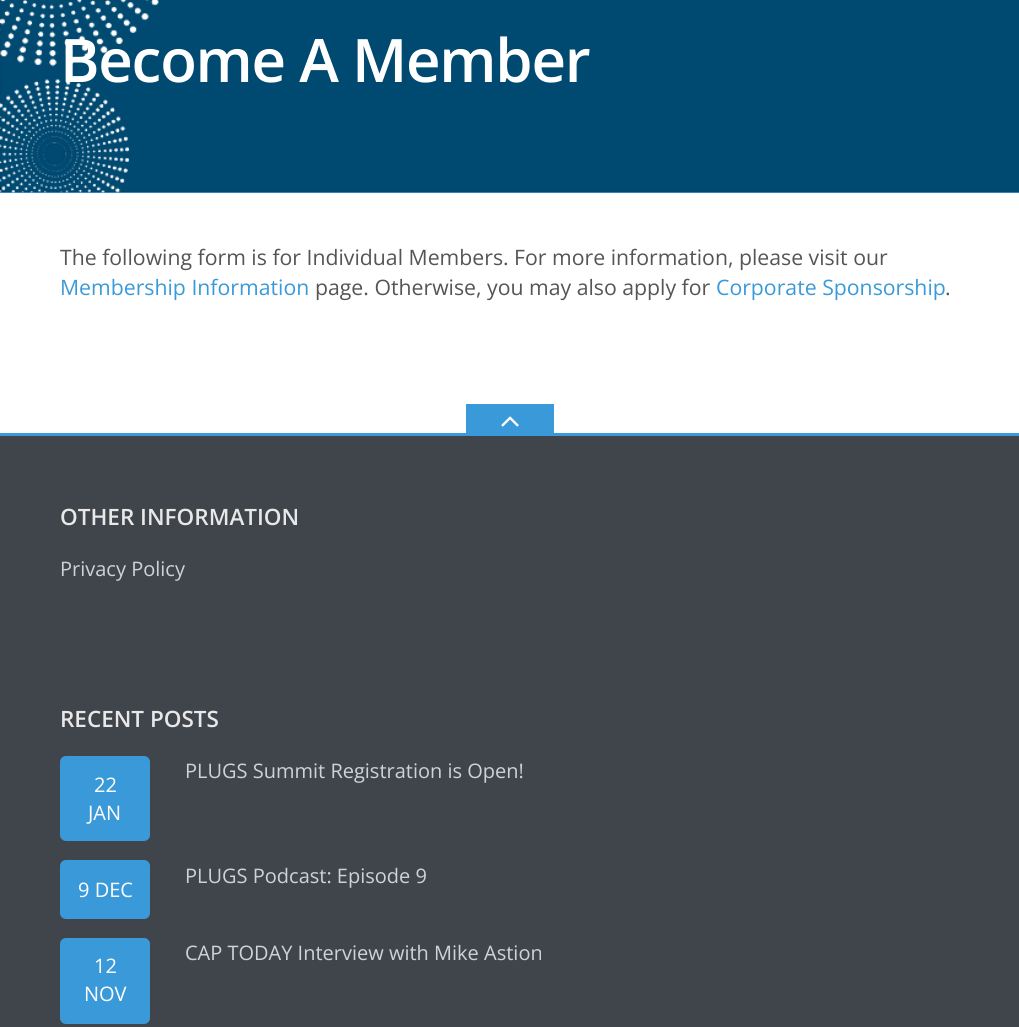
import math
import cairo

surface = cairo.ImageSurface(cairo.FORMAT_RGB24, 1019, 1027)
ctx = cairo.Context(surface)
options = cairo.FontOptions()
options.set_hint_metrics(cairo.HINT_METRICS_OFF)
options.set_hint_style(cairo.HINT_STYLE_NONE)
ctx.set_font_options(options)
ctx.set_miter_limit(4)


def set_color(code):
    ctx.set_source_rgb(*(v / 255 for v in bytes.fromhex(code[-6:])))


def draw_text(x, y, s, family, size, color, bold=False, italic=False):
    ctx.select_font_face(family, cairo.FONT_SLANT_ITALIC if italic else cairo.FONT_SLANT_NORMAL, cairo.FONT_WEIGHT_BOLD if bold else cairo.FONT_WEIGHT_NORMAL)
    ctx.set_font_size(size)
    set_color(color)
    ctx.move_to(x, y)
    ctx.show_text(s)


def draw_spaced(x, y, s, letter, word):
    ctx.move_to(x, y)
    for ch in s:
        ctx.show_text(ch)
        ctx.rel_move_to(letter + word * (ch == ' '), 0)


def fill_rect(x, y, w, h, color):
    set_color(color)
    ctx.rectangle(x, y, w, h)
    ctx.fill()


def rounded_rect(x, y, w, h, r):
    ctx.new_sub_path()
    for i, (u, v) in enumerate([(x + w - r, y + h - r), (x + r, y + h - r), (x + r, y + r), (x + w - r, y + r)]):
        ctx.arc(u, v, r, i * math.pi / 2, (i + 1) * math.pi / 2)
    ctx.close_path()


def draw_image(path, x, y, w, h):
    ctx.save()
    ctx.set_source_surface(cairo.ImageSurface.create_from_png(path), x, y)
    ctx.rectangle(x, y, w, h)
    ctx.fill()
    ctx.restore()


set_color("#ffffff")
ctx.paint()
fill_rect(0, 192, 1019, 1, "#3a9ad9")
draw_image("assets/img1.png", 0, 0, 1019, 193)
ctx.select_font_face("Open Sans SemiBold")
ctx.set_font_size(60)
set_color("#ffffff")
draw_spaced(60, 82, "Become A Member", -1.25, 0)
draw_text(60, 265, "The following form is for Individual Members. For more information, please visit our", "Open Sans", 21.25, "#555555")
draw_text(60, 295, "Membership Information", "Open Sans", 21.25, "#3a9ad9")
draw_text(315, 295, "page. Otherwise, you may also apply for", "Open Sans", 21.25, "#555555")
draw_text(716, 295, "Corporate Sponsorship", "Open Sans", 21.25, "#3a9ad9")
draw_text(945, 295, ".", "Open Sans", 21.25, "#555555")
fill_rect(0, 433, 1019, 3, "#3a9ad9")
fill_rect(466, 404, 88, 29, "#3a9ad9")
draw_image("assets/img2.png", 501, 416, 18, 11)
fill_rect(0, 436, 1019, 591, "#40454b")
draw_text(60, 525, "OTHER INFORMATION", "Open Sans SemiBold", 22.5, "#e8e8e8")
draw_text(60, 576, "Privacy Policy", "Open Sans", 20, "#ced3d8")
draw_text(60, 727, "RECENT POSTS", "Open Sans SemiBold", 22.5, "#e8e8e8")
draw_text(185, 778, "PLUGS Summit Registration is Open!", "Open Sans", 20, "#ced3d8")
set_color("#3a9ad9")
rounded_rect(60, 756, 90, 85, 6)
ctx.fill()
draw_text(94, 792, "22", "Open Sans", 20, "#ffffff")
draw_text(88, 820, "JAN", "Open Sans", 20, "#ffffff")
draw_text(185, 883, "PLUGS Podcast: Episode 9", "Open Sans", 20, "#ced3d8")
set_color("#3a9ad9")
rounded_rect(60, 860, 90, 59, 6)
ctx.fill()
draw_text(78, 897, "9 DEC", "Open Sans", 20, "#ffffff")
draw_text(185, 960, "CAP TODAY Interview with Mike Astion", "Open Sans", 20, "#ced3d8")
set_color("#3a9ad9")
rounded_rect(60, 938, 90, 86, 6)
ctx.fill()
draw_text(94, 973, "12", "Open Sans", 20, "#ffffff")
draw_text(84, 1001, "NOV", "Open Sans", 20, "#ffffff")
surface.write_to_png("output.png")
